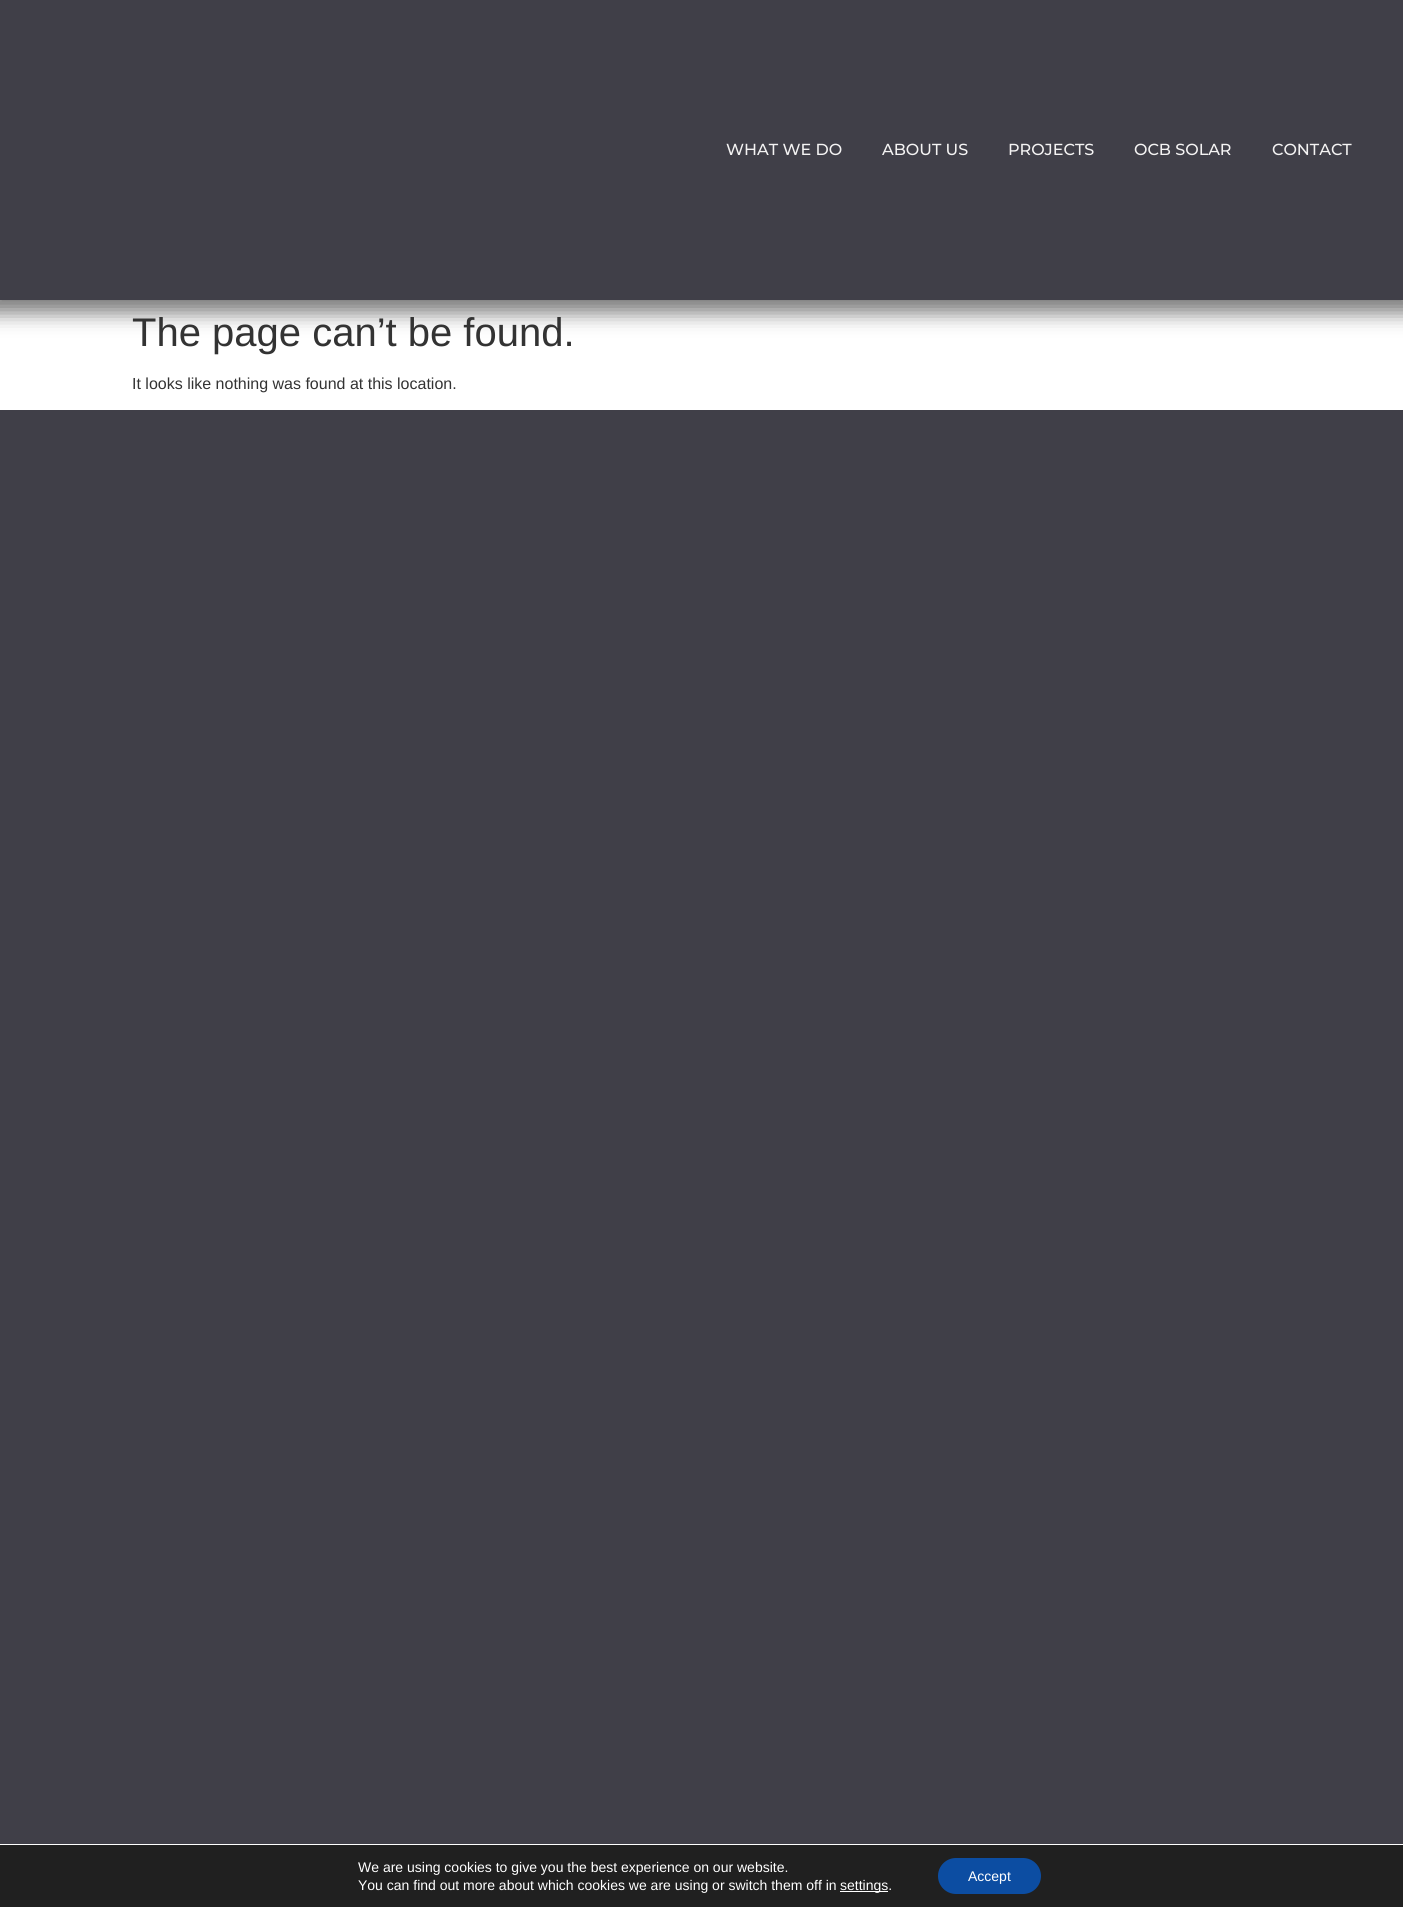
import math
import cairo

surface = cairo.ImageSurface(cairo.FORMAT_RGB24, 1403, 1907)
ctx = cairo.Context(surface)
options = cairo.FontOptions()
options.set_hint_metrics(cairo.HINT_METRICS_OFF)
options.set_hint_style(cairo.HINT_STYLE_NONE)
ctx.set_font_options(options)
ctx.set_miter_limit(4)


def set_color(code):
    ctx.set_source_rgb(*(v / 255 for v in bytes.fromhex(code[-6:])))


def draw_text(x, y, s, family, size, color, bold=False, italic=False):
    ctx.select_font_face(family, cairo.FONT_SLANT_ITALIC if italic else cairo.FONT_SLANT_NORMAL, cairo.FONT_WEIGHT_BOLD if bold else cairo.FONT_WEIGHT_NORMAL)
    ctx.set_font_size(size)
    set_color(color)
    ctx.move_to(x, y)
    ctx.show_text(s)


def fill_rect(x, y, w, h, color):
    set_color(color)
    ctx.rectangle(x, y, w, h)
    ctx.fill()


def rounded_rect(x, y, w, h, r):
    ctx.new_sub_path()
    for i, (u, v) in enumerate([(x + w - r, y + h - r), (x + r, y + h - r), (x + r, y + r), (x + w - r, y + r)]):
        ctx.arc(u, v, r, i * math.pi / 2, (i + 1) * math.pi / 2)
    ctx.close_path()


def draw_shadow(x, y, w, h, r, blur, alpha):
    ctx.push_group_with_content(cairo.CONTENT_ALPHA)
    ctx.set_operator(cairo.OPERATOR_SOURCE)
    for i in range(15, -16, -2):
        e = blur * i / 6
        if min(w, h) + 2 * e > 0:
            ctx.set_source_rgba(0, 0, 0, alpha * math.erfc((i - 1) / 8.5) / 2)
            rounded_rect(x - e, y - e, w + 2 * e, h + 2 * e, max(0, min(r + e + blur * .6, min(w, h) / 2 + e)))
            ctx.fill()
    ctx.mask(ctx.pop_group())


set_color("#ffffff")
ctx.paint()
set_color("#000000")
draw_shadow(-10, -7, 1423, 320, 0, 10, 0.52)
fill_rect(0, 0, 1403, 300, "#403f48")
draw_text(726, 155, "WHAT WE DO", "Montserrat Medium", 16, "#f4f3f3")
draw_text(882, 155, "ABOUT US", "Montserrat Medium", 16, "#f4f3f3")
draw_text(1008, 155, "PROJECTS", "Montserrat Medium", 16, "#f4f3f3")
draw_text(1134, 155, "OCB SOLAR", "Montserrat Medium", 16, "#f4f3f3")
draw_text(1272, 155, "CONTACT", "Montserrat Medium", 16, "#f4f3f3")
draw_text(132, 346, "The page can’t be found.", "Liberation Sans", 40, "#333333")
draw_text(132, 389, "It looks like nothing was found at this location.", "Liberation Sans", 16, "#333333")
fill_rect(0, 410, 1403, 1434, "#403f48")
fill_rect(0, 1845, 1403, 62, "#202020")
draw_text(358, 1872, "We are using cookies to give you the best experience on our website.", "Liberation Sans", 14, "#ffffff")
draw_text(358, 1890, "You can find out more about which cookies we are using or switch them off in", "Liberation Sans", 14, "#ffffff")
fill_rect(840, 1891, 48, 1, "#ffffff")
draw_text(840, 1890, "settings.", "Liberation Sans", 14, "#ffffff")
set_color("#0c4da2")
rounded_rect(938, 1858, 103, 36, 18)
ctx.fill()
draw_text(968, 1881, "Accept", "Liberation Sans", 14, "#ffffff")
surface.write_to_png("output.png")
